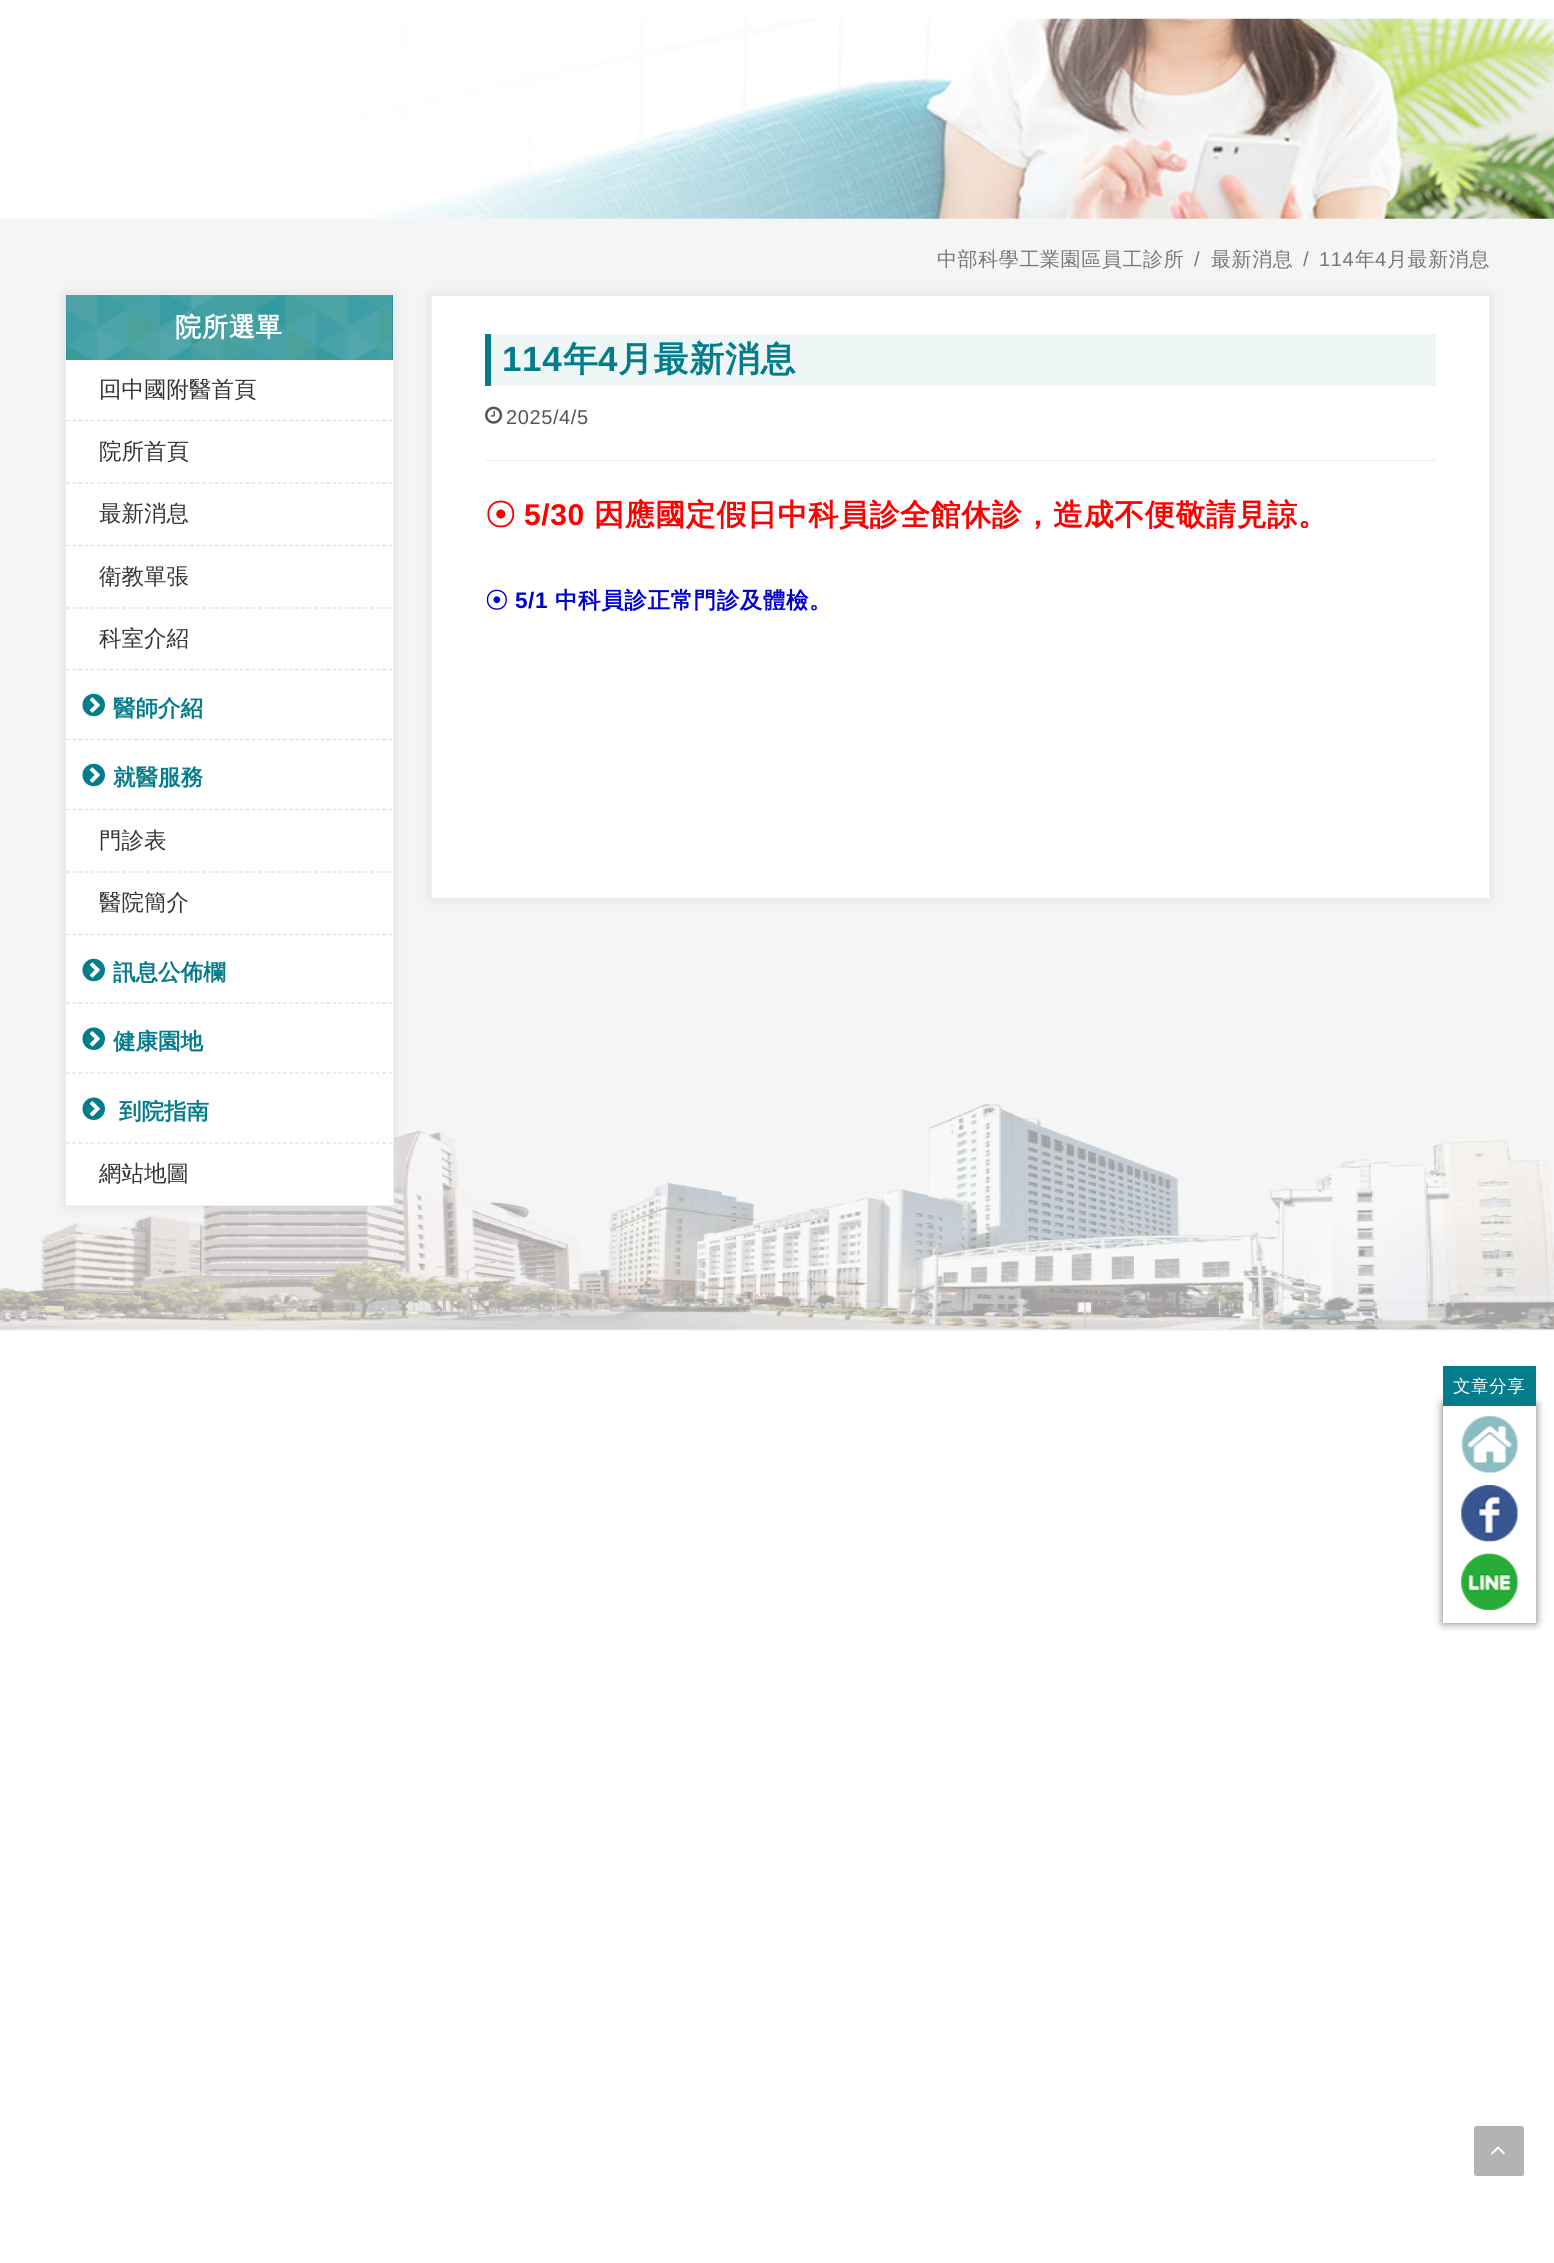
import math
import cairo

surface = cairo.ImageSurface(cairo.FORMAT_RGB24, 1554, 2263)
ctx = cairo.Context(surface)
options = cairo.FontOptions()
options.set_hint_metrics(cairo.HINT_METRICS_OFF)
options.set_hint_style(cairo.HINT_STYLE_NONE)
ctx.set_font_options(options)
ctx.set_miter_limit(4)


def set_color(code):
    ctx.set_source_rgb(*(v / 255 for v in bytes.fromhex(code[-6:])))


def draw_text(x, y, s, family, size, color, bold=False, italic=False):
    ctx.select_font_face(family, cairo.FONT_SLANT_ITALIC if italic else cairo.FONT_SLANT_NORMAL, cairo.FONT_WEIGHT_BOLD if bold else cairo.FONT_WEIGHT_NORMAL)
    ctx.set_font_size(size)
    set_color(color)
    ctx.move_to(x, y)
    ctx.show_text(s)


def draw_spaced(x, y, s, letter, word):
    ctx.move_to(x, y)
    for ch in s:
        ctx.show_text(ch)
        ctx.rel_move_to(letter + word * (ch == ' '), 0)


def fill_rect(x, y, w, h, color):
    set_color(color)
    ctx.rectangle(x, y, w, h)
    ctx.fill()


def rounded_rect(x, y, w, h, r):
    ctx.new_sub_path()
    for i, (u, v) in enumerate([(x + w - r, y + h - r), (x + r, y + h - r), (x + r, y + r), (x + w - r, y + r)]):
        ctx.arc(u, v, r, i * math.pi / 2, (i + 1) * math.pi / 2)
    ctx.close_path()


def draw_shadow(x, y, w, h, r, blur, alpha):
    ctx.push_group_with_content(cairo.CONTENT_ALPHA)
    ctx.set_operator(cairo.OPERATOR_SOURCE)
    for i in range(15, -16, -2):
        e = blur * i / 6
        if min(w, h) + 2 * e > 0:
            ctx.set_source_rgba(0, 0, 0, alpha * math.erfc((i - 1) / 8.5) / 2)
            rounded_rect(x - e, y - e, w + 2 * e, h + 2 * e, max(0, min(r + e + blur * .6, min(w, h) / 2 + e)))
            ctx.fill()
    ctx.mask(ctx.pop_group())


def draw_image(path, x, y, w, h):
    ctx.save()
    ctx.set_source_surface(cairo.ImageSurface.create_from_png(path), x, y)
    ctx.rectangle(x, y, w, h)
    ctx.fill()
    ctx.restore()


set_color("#ffffff")
ctx.paint()
draw_image("assets/img1.png", 358, 18, 1196, 201)
fill_rect(0, 219, 1554, 1112, "#f5f5f5")
draw_image("assets/img2.png", 0, 1103, 1554, 227)
ctx.select_font_face("WenQuanYi Zen Hei Medium")
ctx.set_font_size(20)
set_color("#777777")
draw_spaced(937, 266, "中部科學工業園區員工診所", 0.6, 0)
ctx.select_font_face("Liberation Sans")
draw_spaced(1194, 266, "/", 0.6, 0)
ctx.select_font_face("WenQuanYi Zen Hei Medium")
draw_spaced(1211, 266, "最新消息", 0.6, 0)
ctx.select_font_face("Liberation Sans")
draw_spaced(1303, 266, "/", 0.6, 0)
draw_spaced(1319, 266, "114", 0.6, 0)
ctx.select_font_face("WenQuanYi Zen Hei Medium")
draw_spaced(1355, 266, "年", 0.6, 0)
ctx.select_font_face("Liberation Sans")
draw_spaced(1375, 266, "4", 0.6, 0)
ctx.select_font_face("WenQuanYi Zen Hei Medium")
draw_spaced(1387, 266, "月最新消息", 0.6, 0)
set_color("#dddddd")
draw_shadow(65, 294, 329, 912, 0, 6, 1)
fill_rect(66, 360, 327, 845, "#ffffff")
ctx.rectangle(65.5, 294.5, 328, 911)
set_color("#efefef")
ctx.set_line_width(1)
ctx.stroke()
fill_rect(66, 295, 327, 65, "#047c8c")
draw_image("assets/img3.png", 66, 295, 327, 65)
ctx.select_font_face("WenQuanYi Zen Hei", cairo.FONT_SLANT_NORMAL, cairo.FONT_WEIGHT_BOLD)
ctx.set_font_size(26.25)
set_color("#ffffff")
draw_spaced(175, 336, "院所選單", 0.6, 0)
ctx.new_path()
ctx.move_to(66, 420.5)
ctx.line_to(392.5, 420.5)
set_color("#dddddd")
ctx.set_line_width(1.2)
ctx.set_dash([3.75, 2.45])
ctx.stroke()
draw_text(99, 397, "回中國附醫首頁", "WenQuanYi Zen Hei Medium", 22.5, "#333333")
ctx.new_path()
ctx.move_to(66, 483)
ctx.line_to(392.5, 483)
set_color("#dddddd")
ctx.stroke()
draw_text(99, 459, "院所首頁", "WenQuanYi Zen Hei Medium", 22.5, "#333333")
ctx.new_path()
ctx.move_to(66, 545.5)
ctx.line_to(392.5, 545.5)
set_color("#dddddd")
ctx.stroke()
draw_text(99, 521, "最新消息", "WenQuanYi Zen Hei Medium", 22.5, "#333333")
ctx.new_path()
ctx.move_to(66, 608)
ctx.line_to(392.5, 608)
set_color("#dddddd")
ctx.stroke()
draw_text(99, 584, "衛教單張", "WenQuanYi Zen Hei Medium", 22.5, "#333333")
ctx.new_path()
ctx.move_to(66, 669.5)
ctx.line_to(392.5, 669.5)
set_color("#dddddd")
ctx.stroke()
draw_text(99, 646, "科室介紹", "WenQuanYi Zen Hei Medium", 22.5, "#333333")
ctx.new_path()
ctx.move_to(66, 739.5)
ctx.line_to(392.5, 739.5)
set_color("#dddddd")
ctx.stroke()
draw_image("assets/img4.png", 82, 693, 23, 24)
draw_text(113, 716, "醫師介紹", "WenQuanYi Zen Hei", 22.5, "#047c8c", bold=True)
ctx.new_path()
ctx.move_to(66, 809.5)
ctx.line_to(392.5, 809.5)
set_color("#dddddd")
ctx.stroke()
draw_image("assets/img4.png", 82, 763, 23, 24)
draw_text(113, 785, "就醫服務", "WenQuanYi Zen Hei", 22.5, "#047c8c", bold=True)
ctx.new_path()
ctx.move_to(66, 872)
ctx.line_to(392.5, 872)
set_color("#dddddd")
ctx.stroke()
draw_text(99, 848, "門診表", "WenQuanYi Zen Hei Medium", 22.5, "#333333")
ctx.new_path()
ctx.move_to(66, 934.5)
ctx.line_to(392.5, 934.5)
set_color("#dddddd")
ctx.stroke()
draw_text(99, 910, "醫院簡介", "WenQuanYi Zen Hei Medium", 22.5, "#333333")
ctx.new_path()
ctx.move_to(66, 1003)
ctx.line_to(392.5, 1003)
set_color("#dddddd")
ctx.stroke()
draw_image("assets/img4.png", 82, 958, 23, 24)
draw_text(113, 980, "訊息公佈欄", "WenQuanYi Zen Hei", 22.5, "#047c8c", bold=True)
ctx.new_path()
ctx.move_to(66, 1073)
ctx.line_to(392.5, 1073)
set_color("#dddddd")
ctx.stroke()
draw_image("assets/img5.png", 82, 1027, 23, 23)
draw_text(113, 1049, "健康園地", "WenQuanYi Zen Hei", 22.5, "#047c8c", bold=True)
ctx.new_path()
ctx.move_to(66, 1143)
ctx.line_to(392.5, 1143)
set_color("#dddddd")
ctx.stroke()
draw_image("assets/img5.png", 82, 1097, 23, 23)
draw_text(119, 1119, "到院指南", "WenQuanYi Zen Hei", 22.5, "#047c8c", bold=True)
draw_text(99, 1181, "網站地圖", "WenQuanYi Zen Hei Medium", 22.5, "#333333")
set_color("#dddddd")
draw_shadow(431, 295, 1059, 604, 0, 6, 1)
set_color("#ffffff")
ctx.rectangle(431.5, 295.5, 1058, 603)
ctx.fill_preserve()
set_color("#efefef")
ctx.set_line_width(1)
ctx.set_dash([])
ctx.stroke()
fill_rect(491, 334, 945, 52, "#eef6f6")
fill_rect(485, 334, 6, 52, "#047c8c")
ctx.select_font_face("Liberation Sans", cairo.FONT_SLANT_NORMAL, cairo.FONT_WEIGHT_BOLD)
ctx.set_font_size(35)
draw_spaced(502, 371, "114", 0.6, 0)
ctx.select_font_face("WenQuanYi Zen Hei", cairo.FONT_SLANT_NORMAL, cairo.FONT_WEIGHT_BOLD)
draw_spaced(563, 371, "年", 0.6, 0)
ctx.select_font_face("Liberation Sans", cairo.FONT_SLANT_NORMAL, cairo.FONT_WEIGHT_BOLD)
draw_spaced(598, 371, "4", 0.6, 0)
ctx.select_font_face("WenQuanYi Zen Hei", cairo.FONT_SLANT_NORMAL, cairo.FONT_WEIGHT_BOLD)
draw_spaced(618, 371, "月最新消息", 0.6, 0)
draw_image("assets/img6.png", 485, 406, 18, 18)
ctx.select_font_face("Liberation Sans")
ctx.set_font_size(20)
set_color("#555555")
draw_spaced(506, 424, "2025/4/5", 0.6, 0)
fill_rect(485, 460, 951, 1, "#eeeeee")
ctx.select_font_face("WenQuanYi Zen Hei", cairo.FONT_SLANT_NORMAL, cairo.FONT_WEIGHT_BOLD)
ctx.set_font_size(30)
set_color("#ff0000")
draw_spaced(485, 525, "☉", 0.6, 0)
ctx.select_font_face("Liberation Sans", cairo.FONT_SLANT_NORMAL, cairo.FONT_WEIGHT_BOLD)
draw_spaced(524, 525, "5/30", 0.6, 0)
ctx.select_font_face("WenQuanYi Zen Hei", cairo.FONT_SLANT_NORMAL, cairo.FONT_WEIGHT_BOLD)
draw_spaced(594, 525, "因應國定假日中科員診全館休診，造成不便敬請見諒。", 0.6, 0)
ctx.set_font_size(22.5)
set_color("#0000cd")
draw_spaced(485, 608, "☉", 0.6, 0)
ctx.select_font_face("Liberation Sans", cairo.FONT_SLANT_NORMAL, cairo.FONT_WEIGHT_BOLD)
draw_spaced(515, 608, "5/1", 0.6, 0)
ctx.select_font_face("WenQuanYi Zen Hei", cairo.FONT_SLANT_NORMAL, cairo.FONT_WEIGHT_BOLD)
draw_spaced(555, 608, "中科員診正常門診及體檢。", 0.6, 0)
ctx.save()
ctx.set_fill_rule(cairo.FILL_RULE_EVEN_ODD)
ctx.new_path()
ctx.move_to(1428, 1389)
ctx.line_to(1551, 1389)
ctx.line_to(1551, 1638)
ctx.line_to(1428, 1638)
ctx.close_path()
ctx.move_to(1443, 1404)
ctx.line_to(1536, 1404)
ctx.line_to(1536, 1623)
ctx.line_to(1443, 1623)
ctx.close_path()
ctx.clip()
set_color("#777777")
draw_shadow(1443, 1404, 93, 219, 0, 4.5, 1)
ctx.restore()
ctx.set_source_rgba(1, 1, 1, 0.8)
ctx.rectangle(1443, 1622, 93, 1)
ctx.fill()
fill_rect(1443, 1366, 93, 40, "#047c8c")
ctx.select_font_face("WenQuanYi Zen Hei Medium")
ctx.set_font_size(17.5)
set_color("#ffffff")
draw_spaced(1453, 1392, "文章分享", 0.6, 0)
draw_image("assets/img7.png", 1461, 1416, 58, 57)
draw_image("assets/img8.png", 1461, 1485, 58, 57)
draw_image("assets/img9.png", 1461, 1553, 58, 57)
set_color("#b3b3b3")
rounded_rect(1474, 2126, 50, 50, 2.5)
ctx.fill()
draw_image("assets/img10.png", 1491, 2146, 14, 9)
surface.write_to_png("output.png")
